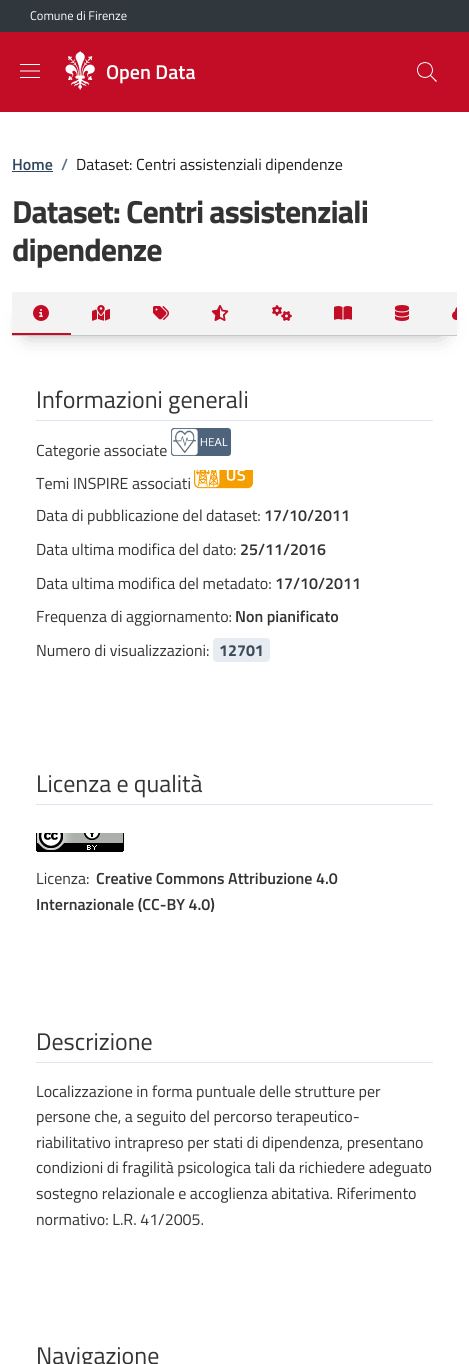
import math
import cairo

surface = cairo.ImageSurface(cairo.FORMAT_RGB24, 469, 1364)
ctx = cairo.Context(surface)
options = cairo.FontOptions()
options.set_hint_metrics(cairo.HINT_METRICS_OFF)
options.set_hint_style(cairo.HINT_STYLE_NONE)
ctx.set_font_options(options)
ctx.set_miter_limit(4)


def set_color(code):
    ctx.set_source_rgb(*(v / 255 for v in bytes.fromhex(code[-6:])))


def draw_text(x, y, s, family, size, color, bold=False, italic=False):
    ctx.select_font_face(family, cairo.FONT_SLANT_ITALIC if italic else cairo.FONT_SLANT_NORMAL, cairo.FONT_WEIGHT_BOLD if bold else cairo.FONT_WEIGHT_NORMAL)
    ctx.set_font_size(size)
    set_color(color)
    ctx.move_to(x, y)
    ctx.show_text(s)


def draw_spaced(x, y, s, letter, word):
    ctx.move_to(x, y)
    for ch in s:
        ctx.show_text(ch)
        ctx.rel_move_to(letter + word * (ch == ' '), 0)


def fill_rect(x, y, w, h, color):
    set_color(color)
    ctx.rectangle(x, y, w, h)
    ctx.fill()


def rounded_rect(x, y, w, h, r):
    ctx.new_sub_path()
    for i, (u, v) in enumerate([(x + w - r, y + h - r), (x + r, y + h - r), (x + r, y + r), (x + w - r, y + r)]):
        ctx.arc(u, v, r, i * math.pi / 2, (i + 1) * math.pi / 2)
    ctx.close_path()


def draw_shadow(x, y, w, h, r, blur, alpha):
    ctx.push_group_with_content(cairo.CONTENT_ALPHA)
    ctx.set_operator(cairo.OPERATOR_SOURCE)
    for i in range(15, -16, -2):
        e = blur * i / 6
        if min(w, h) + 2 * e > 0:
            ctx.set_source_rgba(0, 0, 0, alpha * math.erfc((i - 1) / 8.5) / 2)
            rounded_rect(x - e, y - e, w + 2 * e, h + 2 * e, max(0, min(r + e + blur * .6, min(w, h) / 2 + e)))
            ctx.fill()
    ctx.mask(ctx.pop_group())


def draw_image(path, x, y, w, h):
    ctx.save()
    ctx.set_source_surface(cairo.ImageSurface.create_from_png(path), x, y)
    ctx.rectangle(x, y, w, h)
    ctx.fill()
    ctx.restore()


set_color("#ffffff")
ctx.paint()
fill_rect(0, 0, 469, 32, "#30373d")
draw_text(30, 20, "Comune di Firenze", "Titillium Web", 12.5, "#ffffff")
fill_rect(0, 32, 469, 80, "#c30c26")
draw_image("assets/img1.png", 20, 64, 20, 14)
draw_image("assets/img2.png", 65, 50, 30, 40)
draw_text(106, 79, "Open Data", "Titillium Web SemiBold", 20, "#ffffff")
draw_image("assets/img3.png", 417, 62, 20, 20)
draw_text(12, 170, "Home", "Titillium Web SemiBold", 16, "#30475f")
fill_rect(12, 171, 41, 1, "#30475f")
draw_text(61, 170, "/", "Titillium Web SemiBold", 16, "#5d7083")
draw_text(76, 170, "Dataset: Centri assistenziali dipendenze", "Titillium Web", 16, "#1a1a1a")
ctx.select_font_face("Titillium Web", cairo.FONT_SLANT_NORMAL, cairo.FONT_WEIGHT_BOLD)
ctx.set_font_size(32)
set_color("#333333")
draw_spaced(12, 223, "Dataset: Centri assistenziali", -1, 0)
draw_spaced(12, 261, "dipendenze", -1, 0)
set_color("#000000")
draw_shadow(32, 324, 405, 4, 0, 12.5, 0.5)
fill_rect(12, 292, 445, 43, "#f3f3f3")
fill_rect(12, 335, 445, 1, "#c5c7c9")
fill_rect(12, 333, 59, 2, "#c30c26")
draw_image("assets/img4.png", 33, 305, 16, 16)
draw_image("assets/img5.png", 92, 305, 18, 16)
draw_image("assets/img6.png", 153, 306, 16, 14)
draw_image("assets/img7.png", 211, 305, 18, 16)
draw_image("assets/img8.png", 272, 305, 20, 16)
draw_image("assets/img9.png", 334, 306, 18, 14)
draw_image("assets/img10.png", 395, 305, 14, 16)
draw_image("assets/img11.png", 452, 307, 5, 13)
fill_rect(36, 420, 397, 1, "#dfe4f2")
draw_text(36, 408, "Informazioni generali", "Titillium Web", 24, "#333333")
draw_text(36, 456, "Categorie associate", "Titillium Web", 16, "#333333")
draw_image("assets/img12.png", 171, 428, 60, 28)
draw_text(36, 489, "Temi INSPIRE associati", "Titillium Web", 16, "#333333")
draw_image("assets/img13.png", 194, 470, 59, 19)
draw_text(36, 521, "Data di pubblicazione del dataset:", "Titillium Web", 16, "#333333")
draw_text(264, 521, "17/10/2011", "Titillium Web SemiBold", 16, "#333333")
draw_text(36, 555, "Data ultima modifica del dato:", "Titillium Web", 16, "#333333")
draw_text(240, 555, "25/11/2016", "Titillium Web SemiBold", 16, "#333333")
draw_text(36, 589, "Data ultima modifica del metadato:", "Titillium Web", 16, "#333333")
draw_text(275, 589, "17/10/2011", "Titillium Web SemiBold", 16, "#333333")
draw_text(36, 622, "Frequenza di aggiornamento:", "Titillium Web", 16, "#333333")
draw_text(235, 622, "Non pianificato", "Titillium Web SemiBold", 16, "#333333")
draw_text(36, 656, "Numero di visualizzazioni:", "Titillium Web", 16, "#333333")
set_color("#e6ecf2")
rounded_rect(213, 638, 57, 24, 4)
ctx.fill()
draw_text(219, 656, "12701", "Titillium Web", 16, "#3d4a57", bold=True)
fill_rect(36, 804, 397, 1, "#dfe4f2")
draw_text(36, 792, "Licenza e qualità", "Titillium Web", 24, "#333333")
draw_image("assets/img14.png", 36, 833, 88, 19)
draw_text(36, 884, "Licenza:", "Titillium Web", 16, "#333333")
draw_text(96, 884, "Creative Commons Attribuzione 4.0", "Titillium Web SemiBold", 16, "#333333")
draw_text(36, 910, "Internazionale (CC-BY 4.0)", "Titillium Web SemiBold", 16, "#333333")
fill_rect(36, 1062, 397, 1, "#dfe4f2")
draw_text(36, 1050, "Descrizione", "Titillium Web", 24, "#333333")
draw_text(36, 1097, "Localizzazione in forma puntuale delle strutture per", "Titillium Web", 16, "#333333")
draw_text(36, 1122, "persone che, a seguito del percorso terapeutico-", "Titillium Web", 16, "#333333")
draw_text(36, 1148, "riabilitativo intrapreso per stati di dipendenza, presentano", "Titillium Web", 16, "#333333")
draw_text(36, 1173, "condizioni di fragilità psicologica tali da richiedere adeguato", "Titillium Web", 16, "#333333")
draw_text(36, 1199, "sostegno relazionale e accoglienza abitativa. Riferimento", "Titillium Web", 16, "#333333")
draw_text(36, 1225, "normativo: L.R. 41/2005.", "Titillium Web", 16, "#333333")
draw_text(36, 1364, "Navigazione", "Titillium Web", 24, "#333333")
surface.write_to_png("output.png")
